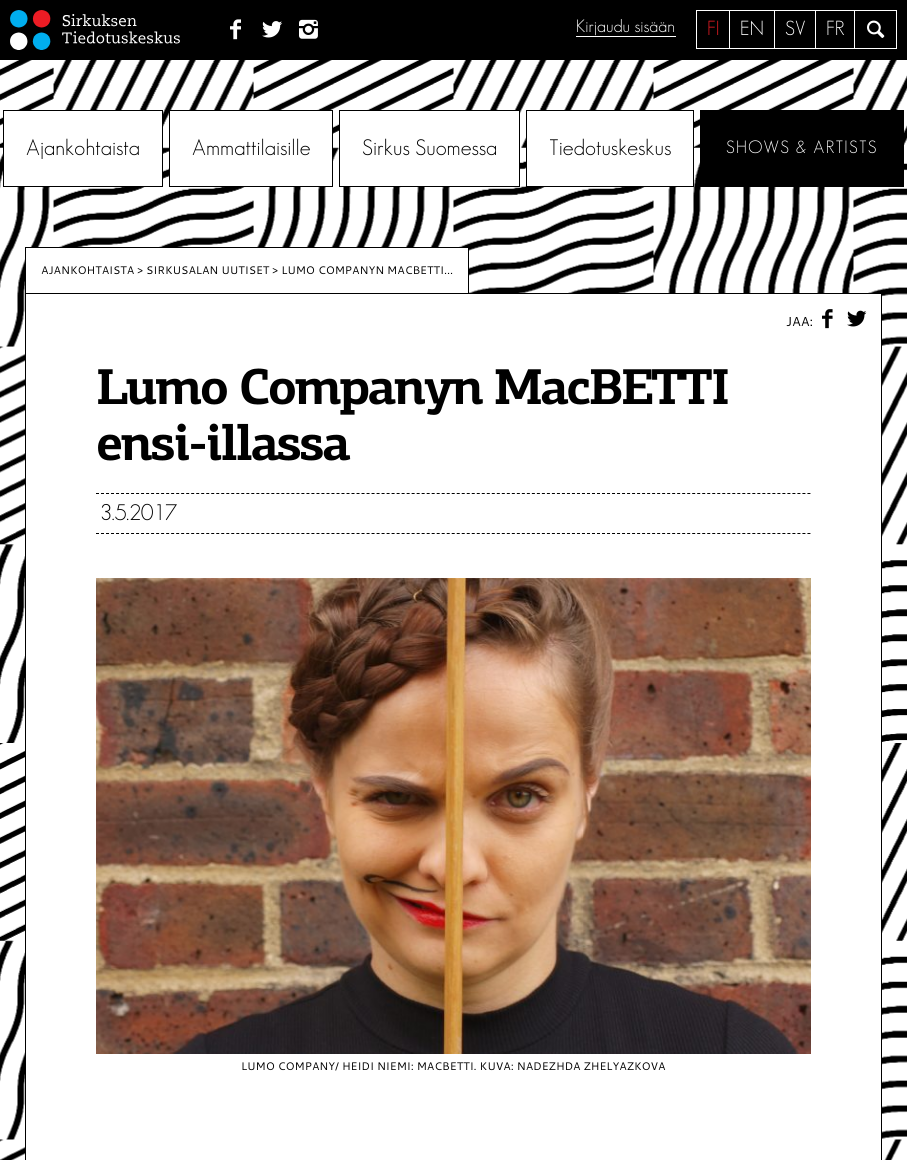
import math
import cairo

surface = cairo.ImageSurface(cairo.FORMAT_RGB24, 907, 1160)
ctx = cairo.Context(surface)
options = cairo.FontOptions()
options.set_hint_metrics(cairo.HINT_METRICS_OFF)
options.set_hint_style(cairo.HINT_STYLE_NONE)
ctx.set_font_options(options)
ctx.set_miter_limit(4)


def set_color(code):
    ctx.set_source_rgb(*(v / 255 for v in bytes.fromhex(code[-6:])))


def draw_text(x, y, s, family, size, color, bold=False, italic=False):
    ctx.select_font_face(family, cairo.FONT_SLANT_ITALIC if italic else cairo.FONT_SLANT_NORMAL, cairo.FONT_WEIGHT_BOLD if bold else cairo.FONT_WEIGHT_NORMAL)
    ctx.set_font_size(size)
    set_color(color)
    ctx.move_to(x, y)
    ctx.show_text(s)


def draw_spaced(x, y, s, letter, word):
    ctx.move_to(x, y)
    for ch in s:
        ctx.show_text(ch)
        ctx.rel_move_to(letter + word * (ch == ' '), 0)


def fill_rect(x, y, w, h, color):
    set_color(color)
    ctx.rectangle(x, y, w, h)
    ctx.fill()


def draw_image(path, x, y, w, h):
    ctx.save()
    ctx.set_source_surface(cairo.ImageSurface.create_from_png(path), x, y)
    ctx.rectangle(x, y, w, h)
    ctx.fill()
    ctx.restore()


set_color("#ffffff")
ctx.paint()
draw_image("assets/img1.png", 0, 60, 907, 1100)
fill_rect(0, 0, 907, 60, "#000000")
draw_image("assets/img2.png", 10, 10, 170, 40)
draw_image("assets/img3.png", 230, 19, 11, 21)
draw_image("assets/img4.png", 262, 21, 21, 17)
draw_image("assets/img5.png", 299, 19, 19, 20)
draw_text(576, 32, "Kirjaudu sisään", "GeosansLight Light", 17.5, "#ffffff")
fill_rect(576, 36, 100, 1, "#ffffff")
ctx.rectangle(696.5, 10.5, 33, 38)
ctx.set_line_width(1)
ctx.stroke()
draw_text(707, 35, "FI", "GeosansLight Light", 20, "#ed1c24")
fill_rect(730, 10, 125, 1, "#ffffff")
fill_rect(774, 10, 1, 39, "#ffffff")
fill_rect(730, 48, 45, 1, "#ffffff")
draw_text(740, 35, "EN", "GeosansLight Light", 20, "#ffffff")
fill_rect(815, 10, 1, 39, "#ffffff")
fill_rect(775, 48, 41, 1, "#ffffff")
draw_text(785, 35, "SV", "GeosansLight Light", 20, "#ffffff")
fill_rect(854, 10, 1, 39, "#ffffff")
fill_rect(816, 48, 39, 1, "#ffffff")
draw_text(826, 35, "FR", "GeosansLight Light", 20, "#ffffff")
fill_rect(855, 10, 42, 1, "#ffffff")
fill_rect(896, 10, 1, 39, "#ffffff")
fill_rect(855, 48, 42, 1, "#ffffff")
draw_image("assets/img6.png", 867, 20, 18, 18)
ctx.rectangle(3.5, 110.5, 159, 76)
ctx.fill_preserve()
set_color("#000000")
ctx.stroke()
draw_text(26, 155, "Ajankohtaista", "GeosansLight Light", 22, "#000000")
set_color("#ffffff")
ctx.rectangle(169.5, 110.5, 163, 76)
ctx.fill_preserve()
set_color("#000000")
ctx.stroke()
draw_text(192, 155, "Ammattilaisille", "GeosansLight Light", 22, "#000000")
set_color("#ffffff")
ctx.rectangle(339.5, 110.5, 180, 76)
ctx.fill_preserve()
set_color("#000000")
ctx.stroke()
draw_text(362, 155, "Sirkus Suomessa", "GeosansLight Light", 22, "#000000")
set_color("#ffffff")
ctx.rectangle(526.5, 110.5, 167, 76)
ctx.fill_preserve()
set_color("#000000")
ctx.stroke()
draw_text(549, 155, "Tiedotuskeskus", "GeosansLight Light", 22, "#000000")
fill_rect(700, 110, 204, 77, "#000000")
ctx.set_font_size(17.5)
set_color("#ffffff")
draw_spaced(726, 153, "SHOWS & ARTISTS", 1.25, 0)
fill_rect(26, 248, 442, 45, "#ffffff")
fill_rect(25, 247, 444, 1, "#000000")
fill_rect(468, 247, 1, 47, "#000000")
fill_rect(25, 247, 1, 47, "#000000")
draw_text(41, 274, "AJANKOHTAISTA > SIRKUSALAN UUTISET > LUMO COMPANYN MACBETTI...", "Cantarell", 11, "#000000")
set_color("#ffffff")
ctx.rectangle(25.5, 293.5, 856, 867)
ctx.fill_preserve()
set_color("#000000")
ctx.stroke()
draw_text(786, 326, "JAA:", "Cantarell", 13, "#000000")
draw_image("assets/img7.png", 822, 309, 11, 20)
draw_image("assets/img8.png", 847, 310, 20, 17)
draw_image("assets/img9.png", 98, 368, 630, 47)
draw_image("assets/img10.png", 98, 423, 253, 38)
ctx.new_path()
ctx.move_to(96, 493.5)
ctx.line_to(811, 493.5)
ctx.set_dash([3, 2.01])
ctx.stroke()
ctx.new_path()
ctx.move_to(96, 533.5)
ctx.line_to(811, 533.5)
ctx.stroke()
draw_text(100, 520, "3.5.2017", "GeosansLight Light", 22, "#000000")
draw_image("assets/img11.png", 96, 578, 715, 476)
draw_text(241, 1070, "LUMO COMPANY/ HEIDI NIEMI: MACBETTI. KUVA: NADEZHDA ZHELYAZKOVA", "Cantarell", 11, "#000000")
surface.write_to_png("output.png")
